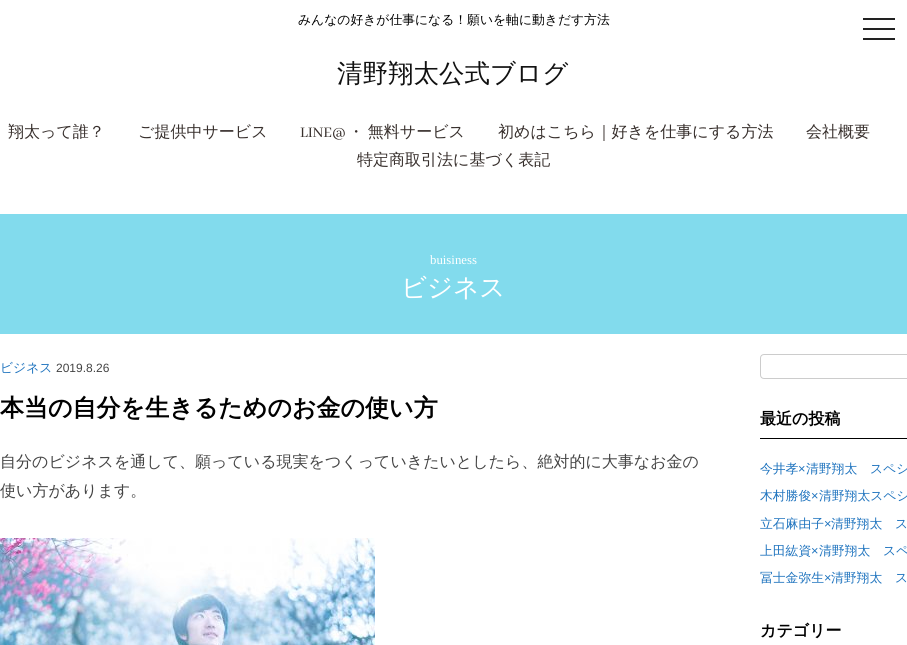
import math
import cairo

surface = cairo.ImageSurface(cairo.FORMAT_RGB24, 907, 645)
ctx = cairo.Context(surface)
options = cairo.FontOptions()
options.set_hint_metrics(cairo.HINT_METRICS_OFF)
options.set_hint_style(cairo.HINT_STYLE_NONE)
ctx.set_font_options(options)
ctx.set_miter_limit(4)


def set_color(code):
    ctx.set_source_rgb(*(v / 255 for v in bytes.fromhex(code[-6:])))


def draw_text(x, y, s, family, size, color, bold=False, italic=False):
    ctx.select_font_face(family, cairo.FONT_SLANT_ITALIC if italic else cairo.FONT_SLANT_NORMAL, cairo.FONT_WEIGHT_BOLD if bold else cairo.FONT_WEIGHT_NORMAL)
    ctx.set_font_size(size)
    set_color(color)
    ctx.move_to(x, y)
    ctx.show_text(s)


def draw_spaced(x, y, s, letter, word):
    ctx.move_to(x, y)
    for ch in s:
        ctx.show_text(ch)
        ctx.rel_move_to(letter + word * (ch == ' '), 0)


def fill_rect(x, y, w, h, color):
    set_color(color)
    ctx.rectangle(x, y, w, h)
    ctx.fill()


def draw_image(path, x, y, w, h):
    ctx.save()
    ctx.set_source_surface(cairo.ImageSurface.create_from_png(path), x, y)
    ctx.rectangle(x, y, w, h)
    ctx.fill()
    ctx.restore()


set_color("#ffffff")
ctx.paint()
draw_text(298, 24, "みんなの好きが仕事になる！願いを軸に動きだす方法", "WenQuanYi Zen Hei Medium", 12.8, "#000000")
fill_rect(863, 28, 32, 2, "#222222")
fill_rect(863, 18, 32, 2, "#222222")
fill_rect(863, 38, 32, 2, "#222222")
draw_text(337, 82, "清野翔太公式ブログ", "WenQuanYi Zen Hei Medium", 25.5, "#111111")
draw_text(8, 137, "翔太って誰？", "WenQuanYi Zen Hei Medium", 16, "#372f2c")
draw_text(138, 137, "ご提供中サービス", "WenQuanYi Zen Hei Medium", 16, "#372f2c")
draw_text(300, 137, "LINE@", "Abhaya Libre", 16, "#372f2c")
ctx.select_font_face("WenQuanYi Zen Hei Medium")
draw_spaced(348, 137, "・ 無料サービス", 0, -1)
draw_text(498, 137, "初めはこちら｜好きを仕事にする方法", "WenQuanYi Zen Hei Medium", 16, "#372f2c")
draw_text(806, 137, "会社概要", "WenQuanYi Zen Hei Medium", 16, "#372f2c")
draw_text(357, 165, "特定商取引法に基づく表記", "WenQuanYi Zen Hei Medium", 16, "#372f2c")
fill_rect(0, 214, 907, 120, "#82dbed")
draw_text(430, 264, "buisiness", "Liberation Serif", 12.8, "#ffffff")
draw_text(401, 296, "ビジネス", "WenQuanYi Zen Hei Medium", 25.5, "#ffffff")
draw_text(0, 372, "ビジネス", "WenQuanYi Zen Hei Medium", 12.8, "#1e73be")
draw_text(56, 372, "2019.8.26", "Liberation Sans", 12, "#444444")
draw_text(0, 416, "本当の自分を生きるためのお金の使い方", "WenQuanYi Zen Hei", 24, "#000000", bold=True)
draw_text(0, 467, "自分のビジネスを通して、願っている現実をつくっていきたいとしたら、絶対的に大事なお金の", "WenQuanYi Zen Hei Medium", 16, "#444444")
draw_text(0, 496, "使い方があります。", "WenQuanYi Zen Hei Medium", 16, "#444444")
draw_image("assets/img1.png", 0, 538, 375, 107)
ctx.new_path()
ctx.move_to(764, 354.5)
ctx.line_to(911.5, 354.5)
ctx.line_to(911.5, 378.5)
ctx.line_to(764, 378.5)
ctx.curve_to(762, 378.5, 760.5, 377, 760.5, 375)
ctx.line_to(760.5, 358)
ctx.curve_to(760.5, 356, 762, 354.5, 764, 354.5)
ctx.close_path()
set_color("#cccccc")
ctx.set_line_width(1)
ctx.stroke()
fill_rect(760, 438, 147, 1, "#000000")
draw_text(760, 424, "最近の投稿", "WenQuanYi Zen Hei", 16, "#000000", bold=True)
draw_text(760, 473, "今井孝", "WenQuanYi Zen Hei Medium", 12.8, "#1e73be")
draw_text(798, 473, "×", "Liberation Sans", 12.8, "#1e73be")
draw_text(806, 473, "清野翔太　スペシ", "WenQuanYi Zen Hei Medium", 12.8, "#1e73be")
draw_text(760, 500, "木村勝俊", "WenQuanYi Zen Hei Medium", 12.8, "#1e73be")
draw_text(811, 500, "×", "Liberation Sans", 12.8, "#1e73be")
draw_text(819, 500, "清野翔太スペシ", "WenQuanYi Zen Hei Medium", 12.8, "#1e73be")
draw_text(760, 528, "立石麻由子", "WenQuanYi Zen Hei Medium", 12.8, "#1e73be")
draw_text(824, 528, "×", "Liberation Sans", 12.8, "#1e73be")
draw_text(831, 528, "清野翔太　ス", "WenQuanYi Zen Hei Medium", 12.8, "#1e73be")
draw_text(760, 555, "上田紘資", "WenQuanYi Zen Hei Medium", 12.8, "#1e73be")
draw_text(811, 555, "×", "Liberation Sans", 12.8, "#1e73be")
draw_text(819, 555, "清野翔太　スペ", "WenQuanYi Zen Hei Medium", 12.8, "#1e73be")
draw_text(760, 582, "冨士金弥生", "WenQuanYi Zen Hei Medium", 12.8, "#1e73be")
draw_text(824, 582, "×", "Liberation Sans", 12.8, "#1e73be")
draw_text(831, 582, "清野翔太　ス", "WenQuanYi Zen Hei Medium", 12.8, "#1e73be")
draw_text(760, 636, "カテゴリー", "WenQuanYi Zen Hei", 16, "#000000", bold=True)
surface.write_to_png("output.png")
